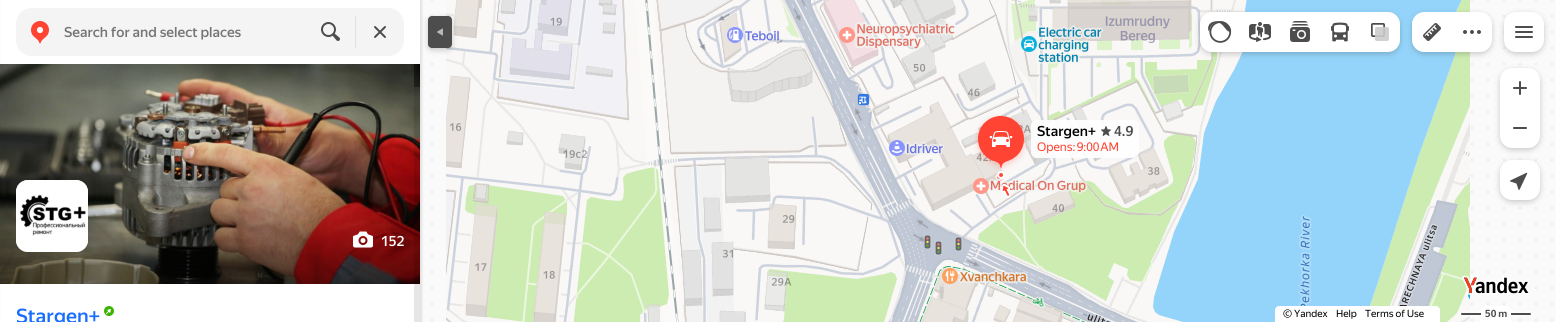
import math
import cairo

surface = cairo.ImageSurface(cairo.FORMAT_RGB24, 1556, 322)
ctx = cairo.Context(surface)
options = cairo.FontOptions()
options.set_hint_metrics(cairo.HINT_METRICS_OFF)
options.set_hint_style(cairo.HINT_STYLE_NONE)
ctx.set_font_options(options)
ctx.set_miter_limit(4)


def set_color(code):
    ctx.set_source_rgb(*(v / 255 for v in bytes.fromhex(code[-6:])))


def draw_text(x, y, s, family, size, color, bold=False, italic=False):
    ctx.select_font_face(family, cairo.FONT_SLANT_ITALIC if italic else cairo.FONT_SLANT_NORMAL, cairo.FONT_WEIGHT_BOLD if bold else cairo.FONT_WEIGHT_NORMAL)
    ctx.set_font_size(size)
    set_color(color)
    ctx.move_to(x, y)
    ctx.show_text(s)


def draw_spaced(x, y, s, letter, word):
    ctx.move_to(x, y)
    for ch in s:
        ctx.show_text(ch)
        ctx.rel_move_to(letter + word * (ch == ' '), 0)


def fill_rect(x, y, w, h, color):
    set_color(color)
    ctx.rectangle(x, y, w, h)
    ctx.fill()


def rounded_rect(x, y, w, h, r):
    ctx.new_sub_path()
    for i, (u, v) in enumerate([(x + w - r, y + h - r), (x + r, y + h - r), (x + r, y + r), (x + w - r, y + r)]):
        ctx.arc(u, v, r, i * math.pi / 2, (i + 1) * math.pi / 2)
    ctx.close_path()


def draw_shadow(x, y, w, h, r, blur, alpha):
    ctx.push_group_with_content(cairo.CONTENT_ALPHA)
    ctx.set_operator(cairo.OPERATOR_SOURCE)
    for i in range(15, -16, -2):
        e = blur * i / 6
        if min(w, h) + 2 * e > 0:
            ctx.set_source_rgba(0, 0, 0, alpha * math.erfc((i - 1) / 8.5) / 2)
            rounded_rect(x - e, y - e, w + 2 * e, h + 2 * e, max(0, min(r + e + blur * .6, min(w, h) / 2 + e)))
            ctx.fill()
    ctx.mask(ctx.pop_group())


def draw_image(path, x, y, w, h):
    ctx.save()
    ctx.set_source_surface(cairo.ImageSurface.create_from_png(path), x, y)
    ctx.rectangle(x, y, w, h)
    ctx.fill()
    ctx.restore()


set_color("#ffffff")
ctx.paint()
draw_image("assets/img1.png", 420, 0, 1136, 322)
set_color("#000000")
draw_shadow(2, 0, 420, 322, 0, 1, 0.1)
draw_image("assets/img22.png", 446, 0, 256, 163)
draw_shadow(428, 18, 24, 32, 4, 3, 0.2)
fill_rect(1, 0, 419, 64, "#ffffff")
set_color("#f4f4f4")
rounded_rect(16, 8, 388, 48, 16)
ctx.fill()
draw_image("assets/img2.png", 31, 21, 18, 23)
draw_text(64, 37, "Search for and select places", "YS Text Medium", 14, "#757575")
draw_image("assets/img3.png", 321, 22, 19, 19)
fill_rect(355, 16, 1, 32, "#e0e0e0")
draw_image("assets/img4.png", 374, 26, 12, 12)
draw_image("assets/img24.png", 958, 0, 256, 163)
draw_image("assets/img25.png", 1214, 0, 256, 163)
set_color("#000000")
draw_shadow(1200, 14, 200, 40, 12, 3, 0.2)
set_color("#ffffff")
ctx.new_path()
ctx.move_to(1212, 12)
ctx.line_to(1240, 12)
ctx.line_to(1240, 52)
ctx.line_to(1212, 52)
ctx.curve_to(1205.5, 52, 1200, 46.5, 1200, 40)
ctx.line_to(1200, 24)
ctx.curve_to(1200, 17.5, 1205.5, 12, 1212, 12)
ctx.close_path()
ctx.fill()
draw_image("assets/img5.png", 1208, 21, 24, 22)
fill_rect(1240, 12, 120, 40, "#ffffff")
draw_image("assets/img6.png", 1249, 22, 22, 20)
ctx.new_path()
ctx.move_to(1360, 12)
ctx.line_to(1388, 12)
ctx.curve_to(1394.5, 12, 1400, 17.5, 1400, 24)
ctx.line_to(1400, 40)
ctx.curve_to(1400, 46.5, 1394.5, 52, 1388, 52)
ctx.line_to(1360, 52)
ctx.close_path()
ctx.fill()
draw_image("assets/img7.png", 1371, 23, 18, 18)
draw_image("assets/img8.png", 1290, 21, 20, 21)
draw_image("assets/img9.png", 1331, 22, 18, 20)
set_color("#000000")
draw_shadow(1412, 14, 80, 40, 12, 3, 0.2)
set_color("#ffffff")
ctx.new_path()
ctx.move_to(1424, 12)
ctx.line_to(1452, 12)
ctx.line_to(1452, 52)
ctx.line_to(1424, 52)
ctx.curve_to(1417.5, 52, 1412, 46.5, 1412, 40)
ctx.line_to(1412, 24)
ctx.curve_to(1412, 17.5, 1417.5, 12, 1424, 12)
ctx.close_path()
ctx.fill()
draw_image("assets/img10.png", 1423, 23, 18, 18)
ctx.new_path()
ctx.move_to(1452, 12)
ctx.line_to(1480, 12)
ctx.curve_to(1486.5, 12, 1492, 17.5, 1492, 24)
ctx.line_to(1492, 40)
ctx.curve_to(1492, 46.5, 1486.5, 52, 1480, 52)
ctx.line_to(1452, 52)
ctx.close_path()
ctx.fill()
draw_image("assets/img11.png", 1463, 30, 18, 4)
set_color("#000000")
draw_shadow(1504, 14, 40, 40, 12, 3, 0.2)
set_color("#ffffff")
rounded_rect(1504, 12, 40, 40, 12)
ctx.fill()
draw_image("assets/img12.png", 1515, 26, 18, 12)
set_color("#000000")
draw_shadow(1500, 70, 40, 80, 12, 3, 0.2)
set_color("#ffffff")
ctx.new_path()
ctx.move_to(1512, 68)
ctx.line_to(1528, 68)
ctx.curve_to(1534.5, 68, 1540, 73.5, 1540, 80)
ctx.line_to(1540, 108)
ctx.line_to(1500, 108)
ctx.line_to(1500, 80)
ctx.curve_to(1500, 73.5, 1505.5, 68, 1512, 68)
ctx.close_path()
ctx.fill()
draw_image("assets/img13.png", 1513, 81, 14, 14)
ctx.new_path()
ctx.move_to(1500, 108)
ctx.line_to(1540, 108)
ctx.line_to(1540, 136)
ctx.curve_to(1540, 142.5, 1534.5, 148, 1528, 148)
ctx.line_to(1512, 148)
ctx.curve_to(1505.5, 148, 1500, 142.5, 1500, 136)
ctx.close_path()
ctx.fill()
draw_image("assets/img14.png", 1513, 127, 14, 2)
set_color("#000000")
draw_shadow(1500, 162, 40, 40, 12, 3, 0.2)
set_color("#ffffff")
rounded_rect(1500, 160, 40, 40, 12)
ctx.fill()
draw_image("assets/img15.png", 1510, 172, 18, 18)
set_color("#4d4d4d")
rounded_rect(428, 16, 24, 32, 4)
ctx.fill()
draw_image("assets/img16.png", 437, 28, 6, 8)
draw_image("assets/img18.png", 0, 64, 420, 220)
gradient = cairo.LinearGradient(210, 170, 210, 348)
gradient.add_color_stop_rgba(0, 0, 0, 0, 0)
gradient.add_color_stop_rgba(0.64, 0, 0, 0, 0.5)
ctx.set_source(gradient)
ctx.rectangle(0, 175, 420, 109)
ctx.fill()
set_color("#ffffff")
rounded_rect(16, 180, 72, 72, 12)
ctx.fill()
draw_image("assets/img17.png", 16, 180, 72, 72)
draw_image("assets/img19.png", 353, 231, 20, 17)
draw_text(381, 246, "152", "YS Text Medium", 14, "#ffffff")
fill_rect(1, 284, 419, 38, "#ffffff")
draw_text(16, 323, "Stargen+", "YS Text Medium", 20, "#196dff")
draw_image("assets/img20.png", 104, 306, 10, 10)
ctx.set_source_rgba(0, 0, 0, 0.1)
ctx.rectangle(414, 64, 6, 258)
ctx.fill()
ctx.set_source_rgba(0, 0, 0, 0.4)
ctx.rectangle(414, 64, 6, 23)
ctx.fill()
draw_image("assets/img29.png", 1214, 163, 256, 159)
draw_image("assets/img21.png", 1462, 275, 67, 20)
set_color("#ffffff")
ctx.new_path()
ctx.move_to(1279, 306)
ctx.line_to(1436, 306)
ctx.curve_to(1438, 306, 1440, 308, 1440, 310)
ctx.line_to(1440, 322)
ctx.line_to(1275, 322)
ctx.line_to(1275, 310)
ctx.curve_to(1275, 308, 1277, 306, 1279, 306)
ctx.close_path()
ctx.fill()
draw_text(1283, 317, "© Yandex", "YS Text", 10, "#000000")
draw_text(1336, 317, "Help", "YS Text", 10, "#000000")
draw_text(1365, 317, "Terms of Use", "YS Text", 10, "#000000")
ctx.set_source_rgba(1, 1, 1, 0.6)
rounded_rect(1459, 311, 74, 6, 3)
ctx.fill()
set_color("#4d4d4d")
rounded_rect(1461, 313, 70, 2, 1)
ctx.fill()
set_color("#ffffff")
ctx.new_path()
ctx.move_to(1485, 306)
ctx.line_to(1507, 306)
ctx.curve_to(1509, 306, 1511, 308, 1511, 310)
ctx.line_to(1511, 322)
ctx.line_to(1481, 322)
ctx.line_to(1481, 310)
ctx.curve_to(1481, 308, 1483, 306, 1485, 306)
ctx.close_path()
ctx.fill()
draw_text(1485, 317, "50 m", "YS Text", 10, "#4d4d4d", bold=True)
draw_image("assets/img23.png", 702, 0, 256, 163)
draw_image("assets/img26.png", 446, 163, 256, 159)
draw_image("assets/img27.png", 702, 163, 256, 159)
draw_image("assets/img28.png", 958, 163, 256, 159)
set_color("#ff4433")
ctx.new_path()
ctx.move_to(1001, 180.5)
ctx.curve_to(996.5, 183, 992.5, 176, 997, 173.5)
ctx.curve_to(1001.5, 171, 1005.5, 178, 1001, 180.5)
ctx.close_path()
ctx.fill()
ctx.new_path()
ctx.move_to(1000.5, 179.5)
ctx.curve_to(997, 181.5, 994, 176, 997.5, 174.5)
ctx.curve_to(1001, 172.5, 1004, 178, 1000.5, 179.5)
ctx.close_path()
set_color("#f4f4f4")
ctx.stroke()
draw_image("assets/img30.png", 974, 114, 54, 65)
draw_image("assets/img31.png", 989, 131, 24, 16)
ctx.set_source_rgba(1, 1, 1, 0.9)
rounded_rect(1031, 120, 108, 38, 6)
ctx.fill()
draw_text(1037, 136, "Stargen+", "YS Text Medium", 14, "#000000")
draw_image("assets/img32.png", 1101, 126, 10, 10)
draw_text(1114, 136, "4.9", "YS Text Medium", 14, "#4d4d4d")
ctx.select_font_face("YS Text")
ctx.set_font_size(12)
set_color("#ff4433")
draw_spaced(1037, 151, "Opens: 9:00 AM", 0, -1)
draw_image("assets/img33.png", 1001, 184, 10, 14)
surface.write_to_png("output.png")
